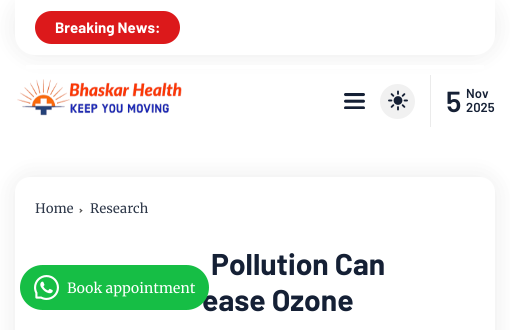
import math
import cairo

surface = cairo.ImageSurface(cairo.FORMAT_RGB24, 510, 330)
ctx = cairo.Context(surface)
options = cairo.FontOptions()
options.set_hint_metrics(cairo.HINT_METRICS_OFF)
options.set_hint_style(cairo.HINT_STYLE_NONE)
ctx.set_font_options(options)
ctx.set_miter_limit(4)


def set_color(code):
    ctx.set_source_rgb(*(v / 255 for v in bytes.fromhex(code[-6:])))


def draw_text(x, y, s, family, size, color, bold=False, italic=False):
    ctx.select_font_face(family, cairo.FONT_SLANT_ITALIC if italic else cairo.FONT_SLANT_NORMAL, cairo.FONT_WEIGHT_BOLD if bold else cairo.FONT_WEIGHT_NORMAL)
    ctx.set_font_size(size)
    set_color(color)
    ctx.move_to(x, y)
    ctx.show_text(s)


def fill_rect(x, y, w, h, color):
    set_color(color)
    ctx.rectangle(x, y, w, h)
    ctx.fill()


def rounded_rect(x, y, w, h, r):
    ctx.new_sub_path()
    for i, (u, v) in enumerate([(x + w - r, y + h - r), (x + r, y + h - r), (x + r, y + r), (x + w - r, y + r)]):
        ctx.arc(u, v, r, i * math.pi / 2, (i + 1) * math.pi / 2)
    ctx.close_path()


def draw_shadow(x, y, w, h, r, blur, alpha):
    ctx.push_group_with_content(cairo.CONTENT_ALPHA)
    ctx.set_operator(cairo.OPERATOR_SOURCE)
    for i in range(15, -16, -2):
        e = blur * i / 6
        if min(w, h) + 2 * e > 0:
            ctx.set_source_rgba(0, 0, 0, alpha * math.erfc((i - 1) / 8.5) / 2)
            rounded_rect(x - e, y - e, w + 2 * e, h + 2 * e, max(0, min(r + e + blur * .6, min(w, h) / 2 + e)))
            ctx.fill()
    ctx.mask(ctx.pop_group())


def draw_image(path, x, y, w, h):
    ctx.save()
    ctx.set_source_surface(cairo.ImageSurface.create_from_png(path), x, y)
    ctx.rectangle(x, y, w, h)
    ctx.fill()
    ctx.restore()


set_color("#ffffff")
ctx.paint()
set_color("#000000")
draw_shadow(15, 0, 480, 55, 20, 12.5, 0.08)
set_color("#ffffff")
ctx.new_path()
ctx.move_to(15, 0)
ctx.line_to(495, 0)
ctx.line_to(495, 35)
ctx.curve_to(495, 46, 486, 55, 475, 55)
ctx.line_to(35, 55)
ctx.curve_to(24, 55, 15, 46, 15, 35)
ctx.close_path()
ctx.fill()
set_color("#dc191b")
rounded_rect(35, 11, 145, 33, 16.5)
ctx.fill()
draw_text(55, 33, "Breaking News:", "Barlow", 15, "#ffffff", bold=True)
fill_rect(26, 65, 458, 4, "#ffffff")
draw_image("assets/img1.png", 17, 79, 165, 37)
draw_image("assets/img2.png", 344, 93, 21, 16)
set_color("#f1f1f1")
ctx.arc(397.5, 101.5, 17.5, 0, 2 * math.pi)
ctx.fill()
draw_image("assets/img3.png", 388, 90, 20, 21)
fill_rect(430, 75, 1, 52, "#ebebeb")
draw_text(446, 112, "5", "Barlow SemiBold", 29, "#152035")
draw_text(466, 98, "Nov", "Barlow SemiBold", 13, "#152035")
draw_text(466, 112, "2025", "Barlow SemiBold", 13, "#152035")
set_color("#000000")
draw_shadow(15, 177, 480, 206, 15, 12.5, 0.08)
set_color("#ffffff")
rounded_rect(15, 177, 480, 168, 15)
ctx.fill()
draw_text(35, 213, "Home", "Merriweather", 13, "#2d3748")
set_color("#4e4d4d")
ctx.new_path()
ctx.move_to(79.5, 209.5)
ctx.line_to(80, 208.5)
ctx.line_to(82.5, 210.5)
ctx.line_to(81.5, 211.5)
ctx.close_path()
ctx.fill()
ctx.new_path()
ctx.move_to(79.5, 212)
ctx.line_to(81.5, 210)
ctx.line_to(82.5, 210.5)
ctx.line_to(80, 213)
ctx.close_path()
ctx.fill()
draw_text(90, 213, "Research", "Merriweather", 13, "#2d3748")
draw_text(211, 275, "Pollution Can", "Barlow", 30, "#152035", bold=True)
draw_text(202, 311, "ease Ozone", "Barlow", 30, "#152035", bold=True)
set_color("#16be45")
rounded_rect(20, 265, 189, 45, 22.5)
ctx.fill()
draw_image("assets/img4.png", 34, 275, 25, 25)
draw_text(67, 293, "Book appointment", "Merriweather", 14, "#ffffff")
surface.write_to_png("output.png")
